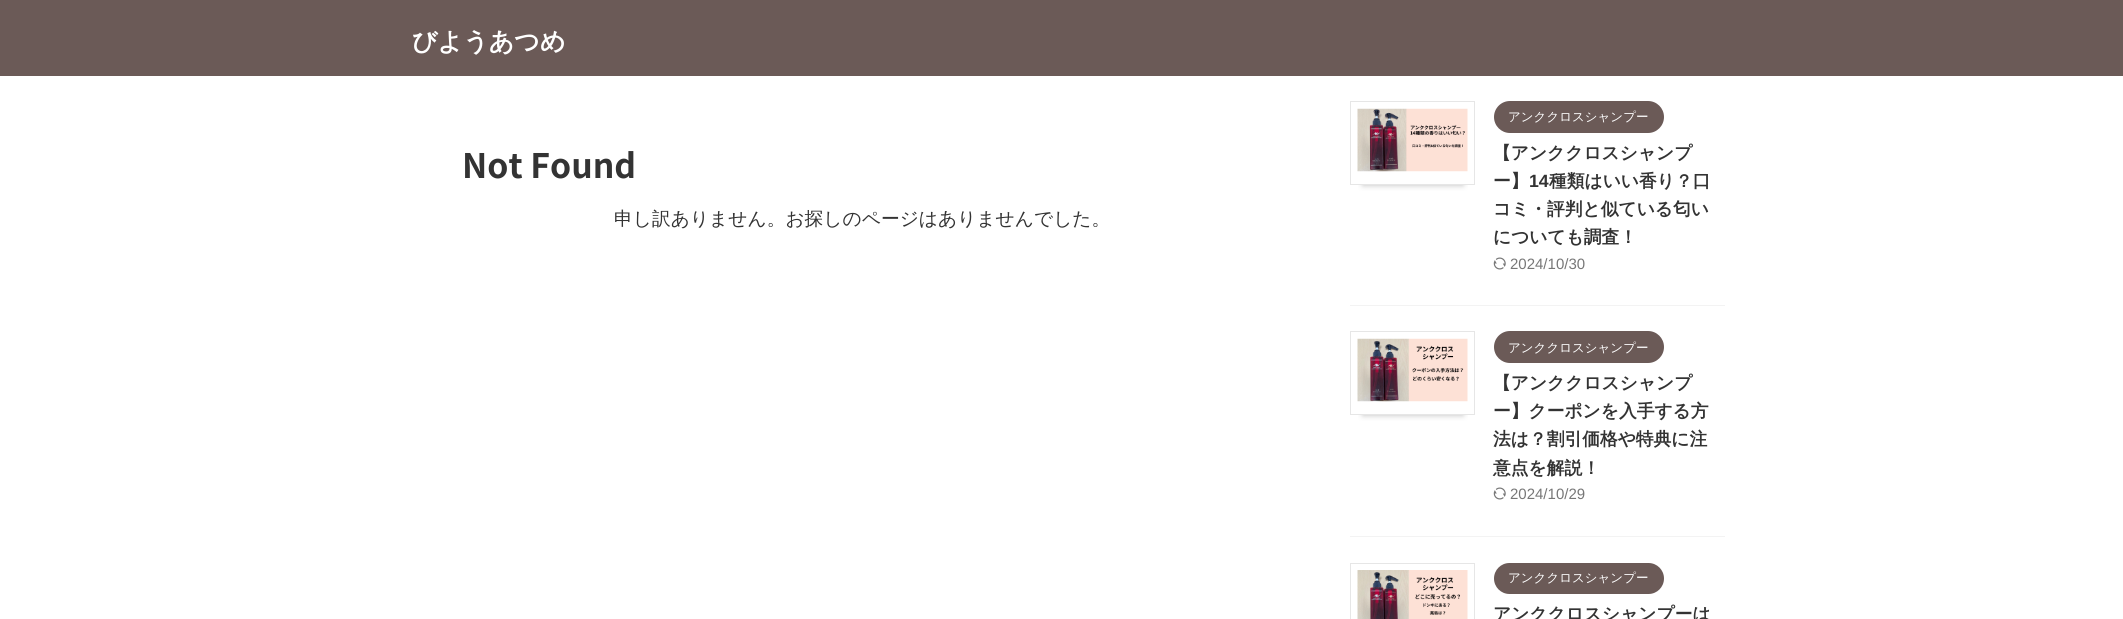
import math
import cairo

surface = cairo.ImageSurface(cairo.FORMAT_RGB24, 2123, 619)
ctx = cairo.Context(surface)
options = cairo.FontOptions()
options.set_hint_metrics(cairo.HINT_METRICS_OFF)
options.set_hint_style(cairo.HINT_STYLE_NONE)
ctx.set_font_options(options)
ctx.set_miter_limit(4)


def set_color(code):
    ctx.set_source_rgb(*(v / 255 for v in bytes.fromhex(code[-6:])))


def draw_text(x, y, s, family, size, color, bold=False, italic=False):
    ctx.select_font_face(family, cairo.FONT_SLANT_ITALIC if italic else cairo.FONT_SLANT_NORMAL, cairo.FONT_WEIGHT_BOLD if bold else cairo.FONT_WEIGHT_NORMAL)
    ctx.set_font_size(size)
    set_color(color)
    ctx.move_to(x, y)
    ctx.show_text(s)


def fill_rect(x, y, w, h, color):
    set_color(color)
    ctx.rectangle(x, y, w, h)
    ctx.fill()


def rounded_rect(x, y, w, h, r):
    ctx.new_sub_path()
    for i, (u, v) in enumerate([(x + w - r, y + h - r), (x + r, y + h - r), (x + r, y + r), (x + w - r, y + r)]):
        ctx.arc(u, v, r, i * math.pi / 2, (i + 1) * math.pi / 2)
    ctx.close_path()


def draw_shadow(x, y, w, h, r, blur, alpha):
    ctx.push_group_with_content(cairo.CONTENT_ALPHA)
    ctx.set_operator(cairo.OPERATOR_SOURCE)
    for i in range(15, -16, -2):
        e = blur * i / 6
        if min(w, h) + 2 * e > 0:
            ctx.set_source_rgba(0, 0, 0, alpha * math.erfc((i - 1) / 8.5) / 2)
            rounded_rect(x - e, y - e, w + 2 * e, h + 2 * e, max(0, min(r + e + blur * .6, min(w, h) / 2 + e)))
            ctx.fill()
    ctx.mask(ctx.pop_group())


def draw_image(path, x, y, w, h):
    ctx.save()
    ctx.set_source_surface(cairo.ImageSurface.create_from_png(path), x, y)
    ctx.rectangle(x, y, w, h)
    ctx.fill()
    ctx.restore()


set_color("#ffffff")
ctx.paint()
fill_rect(0, 0, 2123, 76, "#6b5a57")
draw_text(412, 50, "びようあつめ", "WenQuanYi Zen Hei", 25, "#ffffff", bold=True)
draw_text(462, 178, "Not Found", "Noto Sans JP", 33.75, "#333333", bold=True)
draw_text(614, 225, "申し訳ありません。お探しのページはありませんでした。", "WenQuanYi Zen Hei Medium", 18.75, "#333333")
fill_rect(1350, 305, 375, 1, "#f3f3f3")
ctx.save()
ctx.rectangle(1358, 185, 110, 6)
ctx.clip()
set_color("#bebebe")
draw_shadow(1363, 126, 100, 59, 0, 3, 1)
ctx.restore()
ctx.rectangle(1350.5, 101.5, 124, 83)
set_color("#e6e6e6")
ctx.set_line_width(1)
ctx.stroke()
draw_image("assets/img1.png", 1357, 108, 111, 64)
set_color("#6b5a57")
rounded_rect(1494, 101, 170, 32, 16)
ctx.fill()
draw_text(1508, 121, "アンククロスシャンプー", "WenQuanYi Zen Hei Medium", 12.5, "#ffffff")
draw_text(1493, 159, "【アンククロスシャンプ", "WenQuanYi Zen Hei", 17.75, "#333333", bold=True)
draw_text(1493, 187, "ー】", "WenQuanYi Zen Hei", 17.75, "#333333", bold=True)
draw_text(1529, 187, "14", "Liberation Sans", 17.75, "#333333", bold=True)
draw_text(1549, 187, "種類はいい香り？口", "WenQuanYi Zen Hei", 17.75, "#333333", bold=True)
draw_text(1493, 215, "コミ・評判と似ている匂い", "WenQuanYi Zen Hei", 17.75, "#333333", bold=True)
draw_text(1493, 243, "についても調査！", "WenQuanYi Zen Hei", 17.75, "#333333", bold=True)
draw_image("assets/img2.png", 1493, 257, 13, 13)
draw_text(1510, 269, "2024/10/30", "Liberation Sans", 15, "#777777")
fill_rect(1350, 536, 375, 1, "#f3f3f3")
ctx.save()
ctx.rectangle(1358, 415, 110, 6)
ctx.clip()
set_color("#bebebe")
draw_shadow(1363, 356, 100, 59, 0, 3, 1)
ctx.restore()
ctx.rectangle(1350.5, 331.5, 124, 83)
set_color("#e6e6e6")
ctx.stroke()
draw_image("assets/img3.png", 1357, 338, 111, 64)
set_color("#6b5a57")
rounded_rect(1494, 331, 170, 32, 16)
ctx.fill()
draw_text(1508, 352, "アンククロスシャンプー", "WenQuanYi Zen Hei Medium", 12.5, "#ffffff")
draw_text(1493, 389, "【アンククロスシャンプ", "WenQuanYi Zen Hei", 17.75, "#333333", bold=True)
draw_text(1493, 417, "ー】クーポンを入手する方", "WenQuanYi Zen Hei", 17.75, "#333333", bold=True)
draw_text(1493, 445, "法は？割引価格や特典に注", "WenQuanYi Zen Hei", 17.75, "#333333", bold=True)
draw_text(1493, 474, "意点を解説！", "WenQuanYi Zen Hei", 17.75, "#333333", bold=True)
draw_image("assets/img2.png", 1493, 487, 13, 13)
draw_text(1510, 499, "2024/10/29", "Liberation Sans", 15, "#777777")
ctx.rectangle(1350.5, 563.5, 124, 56)
set_color("#e6e6e6")
ctx.stroke()
draw_image("assets/img4.png", 1357, 570, 111, 49)
set_color("#6b5a57")
rounded_rect(1494, 563, 170, 31, 15.5)
ctx.fill()
draw_text(1508, 582, "アンククロスシャンプー", "WenQuanYi Zen Hei Medium", 12.5, "#ffffff")
draw_text(1493, 620, "アンククロスシャンプーは", "WenQuanYi Zen Hei", 17.75, "#333333", bold=True)
surface.write_to_png("output.png")
